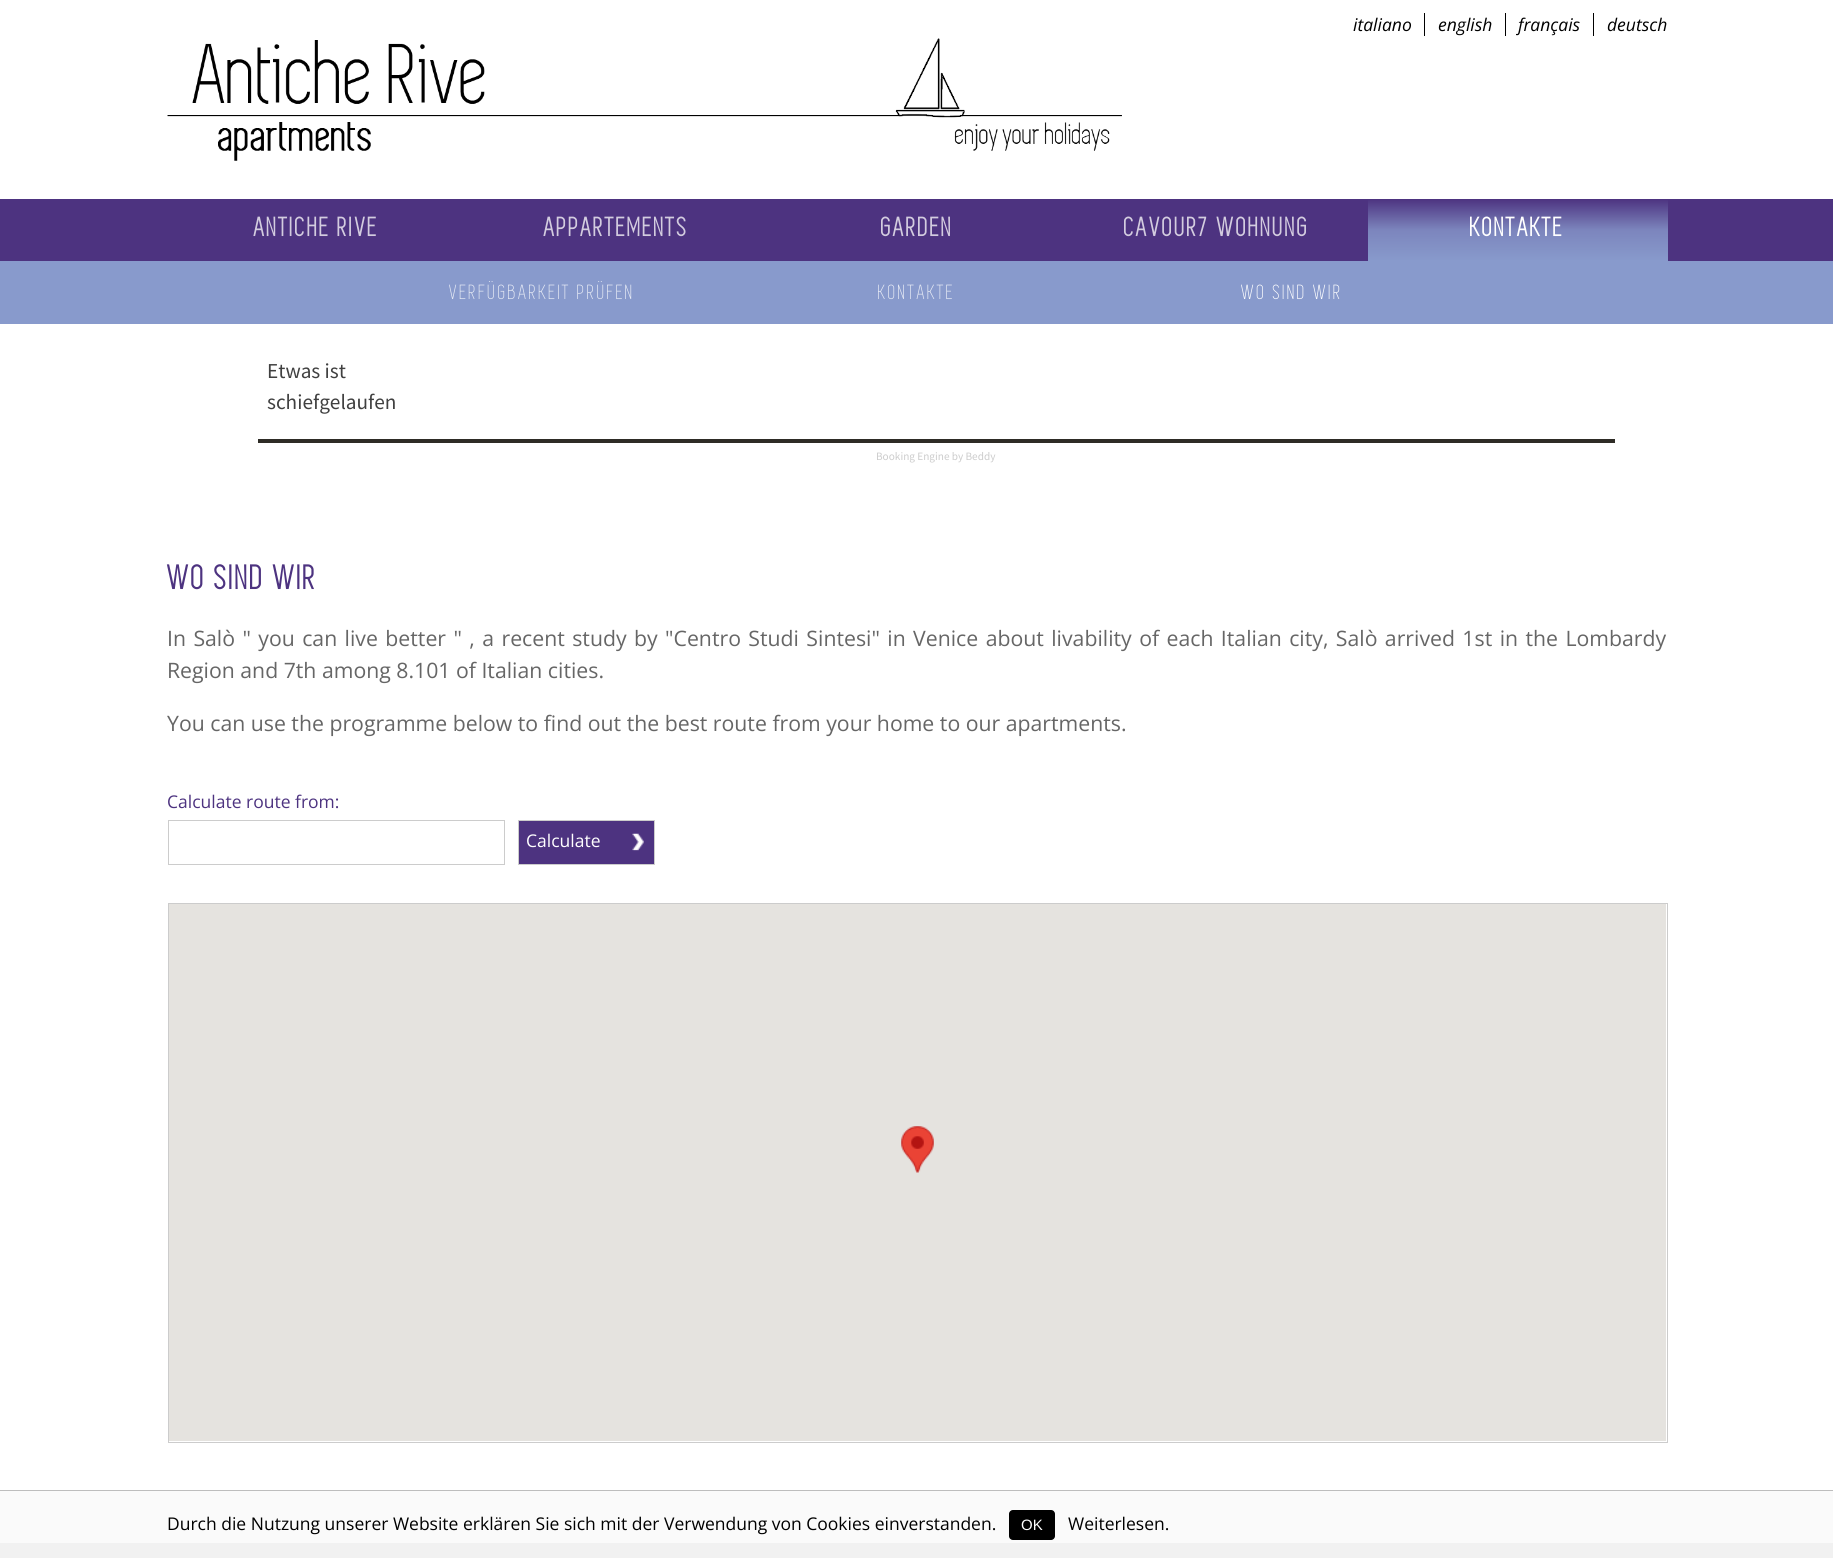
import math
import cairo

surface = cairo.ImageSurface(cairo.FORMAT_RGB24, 1833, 1558)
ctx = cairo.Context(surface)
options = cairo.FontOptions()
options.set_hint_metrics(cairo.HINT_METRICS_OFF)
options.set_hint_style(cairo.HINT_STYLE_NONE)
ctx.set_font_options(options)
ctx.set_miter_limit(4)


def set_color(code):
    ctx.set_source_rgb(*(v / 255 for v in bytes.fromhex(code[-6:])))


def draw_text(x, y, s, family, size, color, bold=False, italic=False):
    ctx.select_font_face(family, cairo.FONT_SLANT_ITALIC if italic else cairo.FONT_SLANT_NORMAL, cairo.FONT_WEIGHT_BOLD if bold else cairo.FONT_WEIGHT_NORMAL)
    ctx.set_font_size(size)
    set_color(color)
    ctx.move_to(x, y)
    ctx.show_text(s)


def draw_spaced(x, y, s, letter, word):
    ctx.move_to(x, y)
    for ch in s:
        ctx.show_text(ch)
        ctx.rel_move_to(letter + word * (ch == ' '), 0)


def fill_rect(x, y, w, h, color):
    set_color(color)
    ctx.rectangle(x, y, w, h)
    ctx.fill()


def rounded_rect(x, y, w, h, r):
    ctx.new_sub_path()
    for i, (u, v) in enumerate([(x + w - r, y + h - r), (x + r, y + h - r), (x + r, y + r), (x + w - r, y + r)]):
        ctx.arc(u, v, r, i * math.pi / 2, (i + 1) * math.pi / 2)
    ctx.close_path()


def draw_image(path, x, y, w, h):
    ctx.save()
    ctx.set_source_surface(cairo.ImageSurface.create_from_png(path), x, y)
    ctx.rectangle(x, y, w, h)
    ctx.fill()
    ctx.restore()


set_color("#ffffff")
ctx.paint()
fill_rect(0, 1491, 1833, 52, "#fafafa")
draw_text(1353, 31, "italiano", "Open Sans", 17.5, "#000000", italic=True)
fill_rect(1424, 13, 1, 23, "#000000")
draw_text(1438, 31, "english", "Open Sans", 17.5, "#000000", italic=True)
fill_rect(1505, 13, 1, 23, "#000000")
draw_text(1518, 31, "français", "Open Sans", 17.5, "#000000", italic=True)
fill_rect(1593, 13, 1, 23, "#000000")
draw_text(1607, 31, "deutsch", "Open Sans", 17.5, "#000000", italic=True)
draw_image("assets/img1.png", 167, 38, 955, 123)
fill_rect(0, 199, 1833, 62, "#4d3380")
ctx.select_font_face("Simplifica", cairo.FONT_SLANT_NORMAL, cairo.FONT_WEIGHT_BOLD)
ctx.set_font_size(27.5)
set_color("#d3ccdf")
draw_spaced(254, 236, "ANTICHE RIVE", 2.5, 0)
gradient = cairo.LinearGradient(1518, 199, 1518, 261)
gradient.add_color_stop_rgba(0, 0.302, 0.2, 0.502, 1)
gradient.add_color_stop_rgba(0.5, 0.486, 0.522, 0.741, 1)
gradient.add_color_stop_rgba(1, 0.533, 0.604, 0.8, 1)
ctx.set_source(gradient)
ctx.rectangle(1368, 200, 300, 61)
ctx.fill()
set_color("#ffffff")
draw_spaced(1470, 236, "KONTAKTE", 2.5, 0)
fill_rect(0, 261, 1833, 63, "#889acc")
ctx.select_font_face("Simplifica")
ctx.set_font_size(21.25)
set_color("#e7ebf5")
draw_spaced(449, 299, "VERFÜGBARKEIT PRÜFEN", 2.5, 0)
draw_spaced(878, 299, "KONTAKTE", 2.5, 0)
set_color("#ffffff")
draw_spaced(1241, 299, "WO SIND WIR", 2.5, 0)
ctx.select_font_face("Simplifica", cairo.FONT_SLANT_NORMAL, cairo.FONT_WEIGHT_BOLD)
ctx.set_font_size(27.5)
set_color("#d3ccdf")
draw_spaced(544, 236, "APPARTEMENTS", 2.5, 0)
draw_spaced(881, 236, "GARDEN", 2.5, 0)
draw_spaced(1124, 236, "CAVOUR7 WOHNUNG", 2.5, 0)
fill_rect(258, 439, 1357, 4, "#2e2c26")
draw_text(267, 378, "Etwas ist", "Source Sans Pro", 21.25, "#404040")
draw_text(267, 409, "schiefgelaufen", "Source Sans Pro", 21.25, "#404040")
draw_text(876, 460, "Booking Engine by Beddy", "Source Sans Pro", 11.25, "#cccccc")
ctx.select_font_face("Simplifica", cairo.FONT_SLANT_NORMAL, cairo.FONT_WEIGHT_BOLD)
ctx.set_font_size(35)
set_color("#4d3380")
draw_spaced(167, 589, "WO SIND WIR", 2.5, 0)
ctx.select_font_face("Open Sans")
ctx.set_font_size(21.25)
set_color("#666666")
draw_spaced(167, 646, "In Salò \" you can live better \" , a recent study by \"Centro Studi Sintesi\" in Venice about livability of each Italian city, Salò arrived 1st in the Lombardy", 0, 1.9)
draw_text(167, 678, "Region and 7th among 8.101 of Italian cities.", "Open Sans", 21.25, "#666666")
draw_text(167, 731, "You can use the programme below to find out the best route from your home to our apartments.", "Open Sans", 21.25, "#666666")
draw_text(167, 808, "Calculate route from:", "Open Sans", 17.5, "#4d3380")
ctx.rectangle(168.5, 820.5, 336, 44)
set_color("#cccccc")
ctx.set_line_width(1)
ctx.stroke()
fill_rect(519, 821, 135, 43, "#4d3380")
draw_image("assets/img2.png", 632, 833, 12, 18)
ctx.rectangle(518.5, 820.5, 136, 44)
set_color("#cccccc")
ctx.stroke()
draw_text(526, 847, "Calculate", "Open Sans", 17.5, "#ffffff")
ctx.rectangle(168.5, 903.5, 1499, 539)
set_color("#cccccc")
ctx.stroke()
fill_rect(169, 904, 1497, 537, "#e5e3df")
draw_image("assets/img3.png", 901, 1126, 33, 47)
fill_rect(0, 1490, 1833, 1, "#bdbdbd")
draw_text(167, 1530, "Durch die Nutzung unserer Website erklären Sie sich mit der Verwendung von Cookies einverstanden.", "Open Sans", 17.5, "#000000")
rounded_rect(1009, 1510, 46, 30, 4)
ctx.fill()
draw_text(1021, 1530, "OK", "Liberation Sans", 15, "#ffffff")
draw_text(1068, 1530, "Weiterlesen.", "Open Sans", 17.5, "#000000")
fill_rect(0, 1543, 1833, 15, "#f1f1f1")
surface.write_to_png("output.png")
